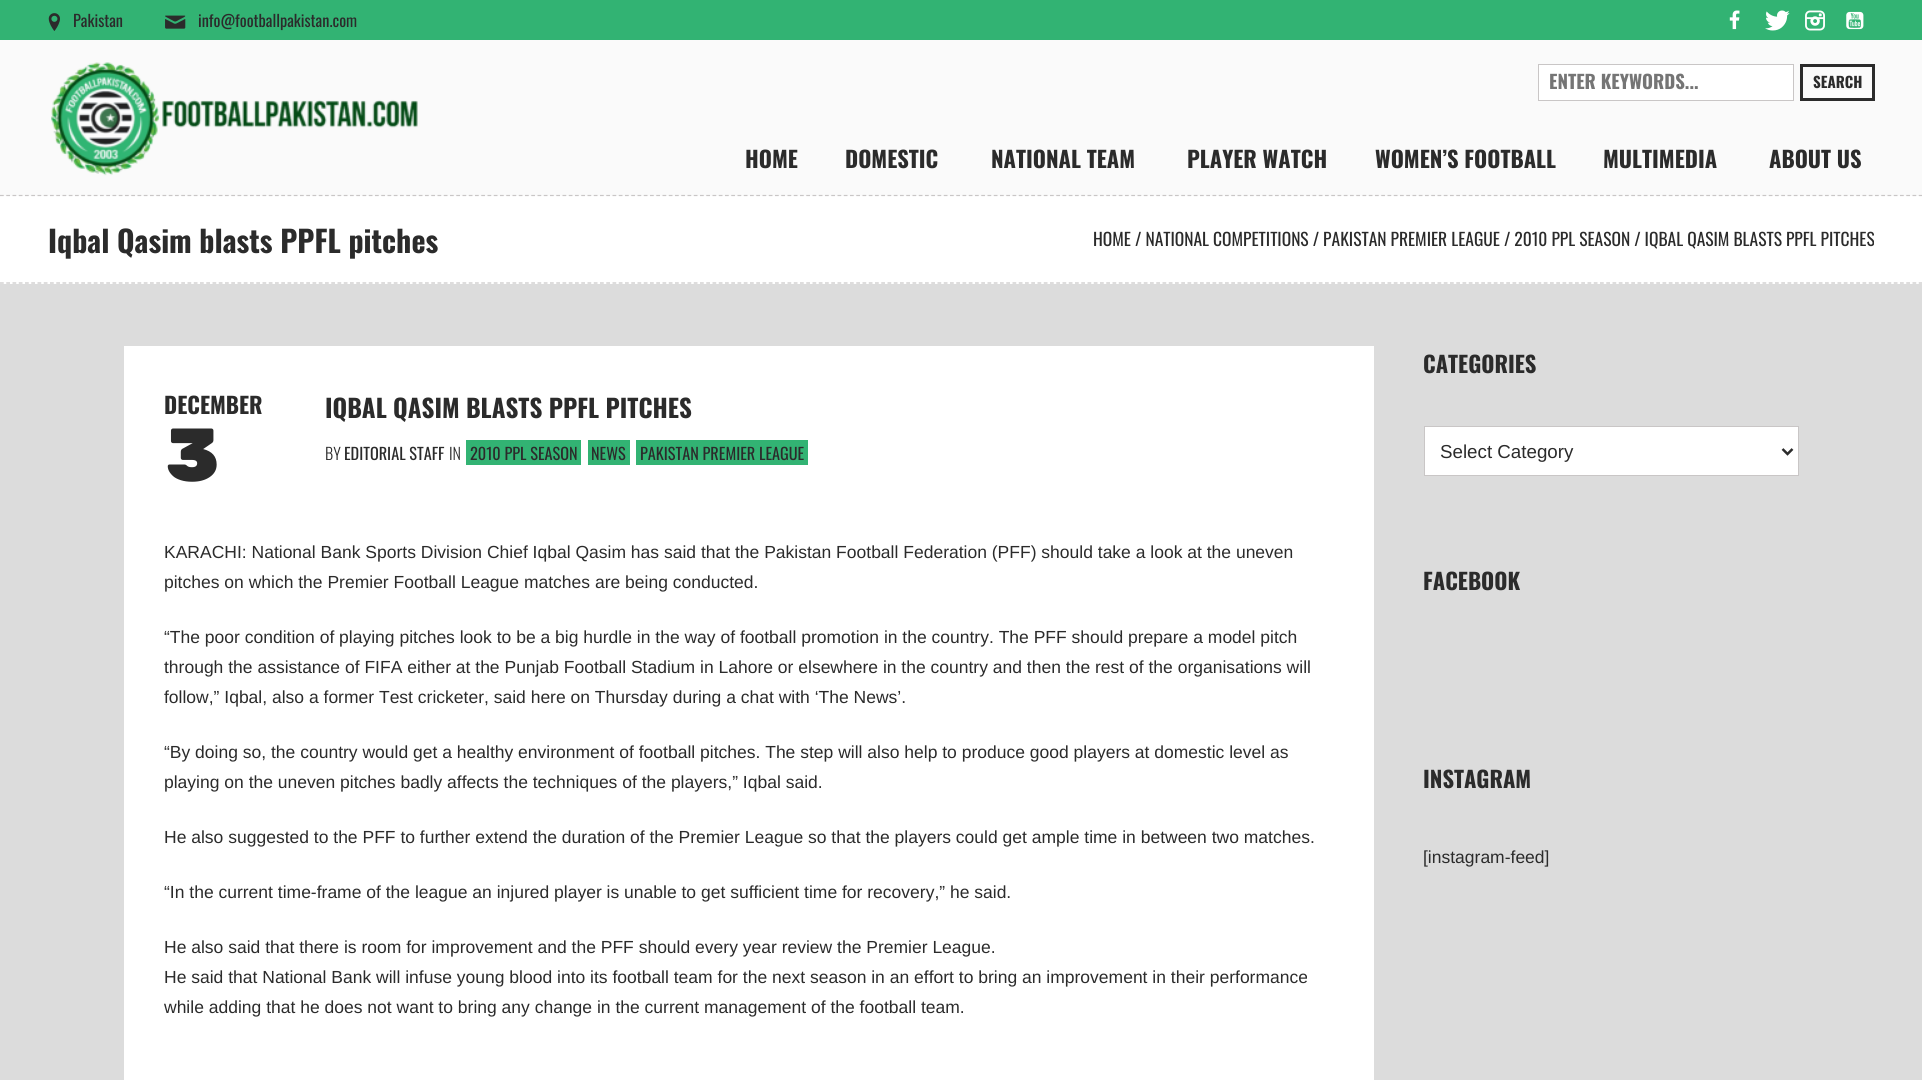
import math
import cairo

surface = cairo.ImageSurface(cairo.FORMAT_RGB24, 1922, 1080)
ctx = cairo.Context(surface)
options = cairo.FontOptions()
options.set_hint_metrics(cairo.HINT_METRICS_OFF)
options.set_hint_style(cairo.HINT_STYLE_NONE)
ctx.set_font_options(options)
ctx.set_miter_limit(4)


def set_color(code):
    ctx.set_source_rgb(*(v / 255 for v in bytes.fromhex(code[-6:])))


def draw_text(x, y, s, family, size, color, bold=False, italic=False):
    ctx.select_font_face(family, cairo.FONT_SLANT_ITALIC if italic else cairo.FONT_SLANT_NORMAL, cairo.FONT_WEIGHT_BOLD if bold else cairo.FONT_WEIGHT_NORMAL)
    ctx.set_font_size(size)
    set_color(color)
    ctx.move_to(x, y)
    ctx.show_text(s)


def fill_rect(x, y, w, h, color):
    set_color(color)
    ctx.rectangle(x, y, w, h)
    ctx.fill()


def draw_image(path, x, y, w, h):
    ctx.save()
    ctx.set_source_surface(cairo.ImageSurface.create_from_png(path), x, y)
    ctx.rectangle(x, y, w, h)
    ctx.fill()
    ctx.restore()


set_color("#dcdcdc")
ctx.paint()
fill_rect(0, 0, 1922, 40, "#32b373")
draw_image("assets/img1.png", 48, 13, 12, 18)
draw_text(73, 27, "Pakistan", "Oswald", 16.25, "#2b2b2b")
draw_image("assets/img2.png", 165, 15, 21, 14)
draw_text(198, 27, "info@footballpakistan.com", "Oswald", 16.25, "#2b2b2b")
draw_image("assets/img3.png", 1729, 10, 11, 20)
draw_image("assets/img4.png", 1765, 10, 25, 21)
draw_image("assets/img5.png", 1805, 10, 20, 21)
draw_image("assets/img6.png", 1846, 11, 18, 19)
fill_rect(0, 40, 1922, 156, "#fafafa")
fill_rect(0, 196, 1922, 88, "#ffffff")
ctx.new_path()
ctx.move_to(0, 195.5)
ctx.line_to(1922.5, 195.5)
set_color("#c9c6c6")
ctx.set_line_width(1.2)
ctx.set_dash([3.75, 2.5])
ctx.stroke()
draw_image("assets/img7.png", 51, 62, 367, 114)
set_color("#ffffff")
ctx.rectangle(1538.5, 64.5, 255, 36)
ctx.fill_preserve()
set_color("#c9c6c6")
ctx.set_line_width(1)
ctx.set_dash([])
ctx.stroke()
draw_text(1549, 89, "ENTER KEYWORDS...", "Oswald", 18.75, "#757575", bold=True)
ctx.rectangle(1801.5, 65.5, 72, 34)
set_color("#2b2b2b")
ctx.set_line_width(3)
ctx.stroke()
draw_text(1813, 88, "SEARCH", "Oswald", 15, "#2b2b2b", bold=True)
draw_text(745, 168, "HOME", "Oswald", 22.5, "#2b2b2b", bold=True)
draw_text(845, 168, "DOMESTIC", "Oswald", 22.5, "#2b2b2b", bold=True)
draw_text(991, 168, "NATIONAL TEAM", "Oswald", 22.5, "#2b2b2b", bold=True)
draw_text(1187, 168, "PLAYER WATCH", "Oswald", 22.5, "#2b2b2b", bold=True)
draw_text(1375, 168, "WOMEN’S FOOTBALL", "Oswald", 22.5, "#2b2b2b", bold=True)
draw_text(1603, 168, "MULTIMEDIA", "Oswald", 22.5, "#2b2b2b", bold=True)
draw_text(1769, 168, "ABOUT US", "Oswald", 22.5, "#2b2b2b", bold=True)
ctx.new_path()
ctx.move_to(0, 283)
ctx.line_to(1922.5, 283)
set_color("#c9c6c6")
ctx.set_line_width(1.2)
ctx.set_dash([3.75, 2.5])
ctx.stroke()
draw_text(48, 253, "Iqbal Qasim blasts PPFL pitches", "Oswald", 30, "#2b2b2b", bold=True)
draw_text(1093, 246, "HOME / NATIONAL COMPETITIONS / PAKISTAN PREMIER LEAGUE / 2010 PPL SEASON / IQBAL QASIM BLASTS PPFL PITCHES", "Oswald", 17.5, "#2b2b2b")
fill_rect(124, 346, 1250, 734, "#ffffff")
draw_text(164, 414, "DECEMBER", "Oswald", 22.5, "#2b2b2b", bold=True)
draw_text(164, 481, "3", "Rubik One", 75, "#2b2b2b")
draw_text(325, 418, "IQBAL QASIM BLASTS PPFL PITCHES", "Oswald", 25, "#2b2b2b", bold=True)
draw_text(325, 460, "BY", "Oswald Light", 16.25, "#2b2b2b")
draw_text(344, 460, "EDITORIAL STAFF", "Oswald", 16.25, "#2b2b2b")
draw_text(449, 460, "IN", "Oswald Light", 16.25, "#2b2b2b")
fill_rect(466, 440, 115, 25, "#32b373")
draw_text(470, 460, "2010 PPL SEASON", "Oswald", 16.25, "#2b2b2b")
fill_rect(588, 440, 42, 25, "#32b373")
draw_text(591, 460, "NEWS", "Oswald", 16.25, "#2b2b2b")
fill_rect(636, 440, 172, 25, "#32b373")
draw_text(640, 460, "PAKISTAN PREMIER LEAGUE", "Oswald", 16.25, "#2b2b2b")
draw_text(164, 558, "KARACHI: National Bank Sports Division Chief Iqbal Qasim has said that the Pakistan Football Federation (PFF) should take a look at the uneven", "Liberation Sans", 17.5, "#2b2b2b")
draw_text(164, 588, "pitches on which the Premier Football League matches are being conducted.", "Liberation Sans", 17.5, "#2b2b2b")
draw_text(164, 643, "“The poor condition of playing pitches look to be a big hurdle in the way of football promotion in the country. The PFF should prepare a model pitch", "Liberation Sans", 17.5, "#2b2b2b")
draw_text(164, 673, "through the assistance of FIFA either at the Punjab Football Stadium in Lahore or elsewhere in the country and then the rest of the organisations will", "Liberation Sans", 17.5, "#2b2b2b")
draw_text(164, 703, "follow,” Iqbal, also a former Test cricketer, said here on Thursday during a chat with ‘The News’.", "Liberation Sans", 17.5, "#2b2b2b")
draw_text(164, 758, "“By doing so, the country would get a healthy environment of football pitches. The step will also help to produce good players at domestic level as", "Liberation Sans", 17.5, "#2b2b2b")
draw_text(164, 788, "playing on the uneven pitches badly affects the techniques of the players,” Iqbal said.", "Liberation Sans", 17.5, "#2b2b2b")
draw_text(164, 843, "He also suggested to the PFF to further extend the duration of the Premier League so that the players could get ample time in between two matches.", "Liberation Sans", 17.5, "#2b2b2b")
draw_text(164, 898, "“In the current time-frame of the league an injured player is unable to get sufficient time for recovery,” he said.", "Liberation Sans", 17.5, "#2b2b2b")
draw_text(164, 953, "He also said that there is room for improvement and the PFF should every year review the Premier League.", "Liberation Sans", 17.5, "#2b2b2b")
draw_text(164, 983, "He said that National Bank will infuse young blood into its football team for the next season in an effort to bring an improvement in their performance", "Liberation Sans", 17.5, "#2b2b2b")
draw_text(164, 1013, "while adding that he does not want to bring any change in the current management of the football team.", "Liberation Sans", 17.5, "#2b2b2b")
draw_text(1423, 373, "CATEGORIES", "Oswald", 22.5, "#2b2b2b", bold=True)
set_color("#ffffff")
ctx.rectangle(1424.5, 426.5, 374, 49)
ctx.fill_preserve()
set_color("#c9c6c6")
ctx.set_line_width(1)
ctx.set_dash([])
ctx.stroke()
ctx.new_path()
ctx.move_to(1782.5, 449)
ctx.line_to(1787.5, 454)
ctx.line_to(1792.5, 449)
set_color("#2b2b2b")
ctx.set_line_width(2.5)
ctx.stroke()
draw_text(1440, 458, "Select Category", "Liberation Sans", 18.75, "#2b2b2b")
draw_text(1423, 590, "FACEBOOK", "Oswald", 22.5, "#2b2b2b", bold=True)
draw_text(1423, 788, "INSTAGRAM", "Oswald", 22.5, "#2b2b2b", bold=True)
draw_text(1423, 863, "[instagram-feed]", "Liberation Sans", 17.5, "#2b2b2b")
surface.write_to_png("output.png")
